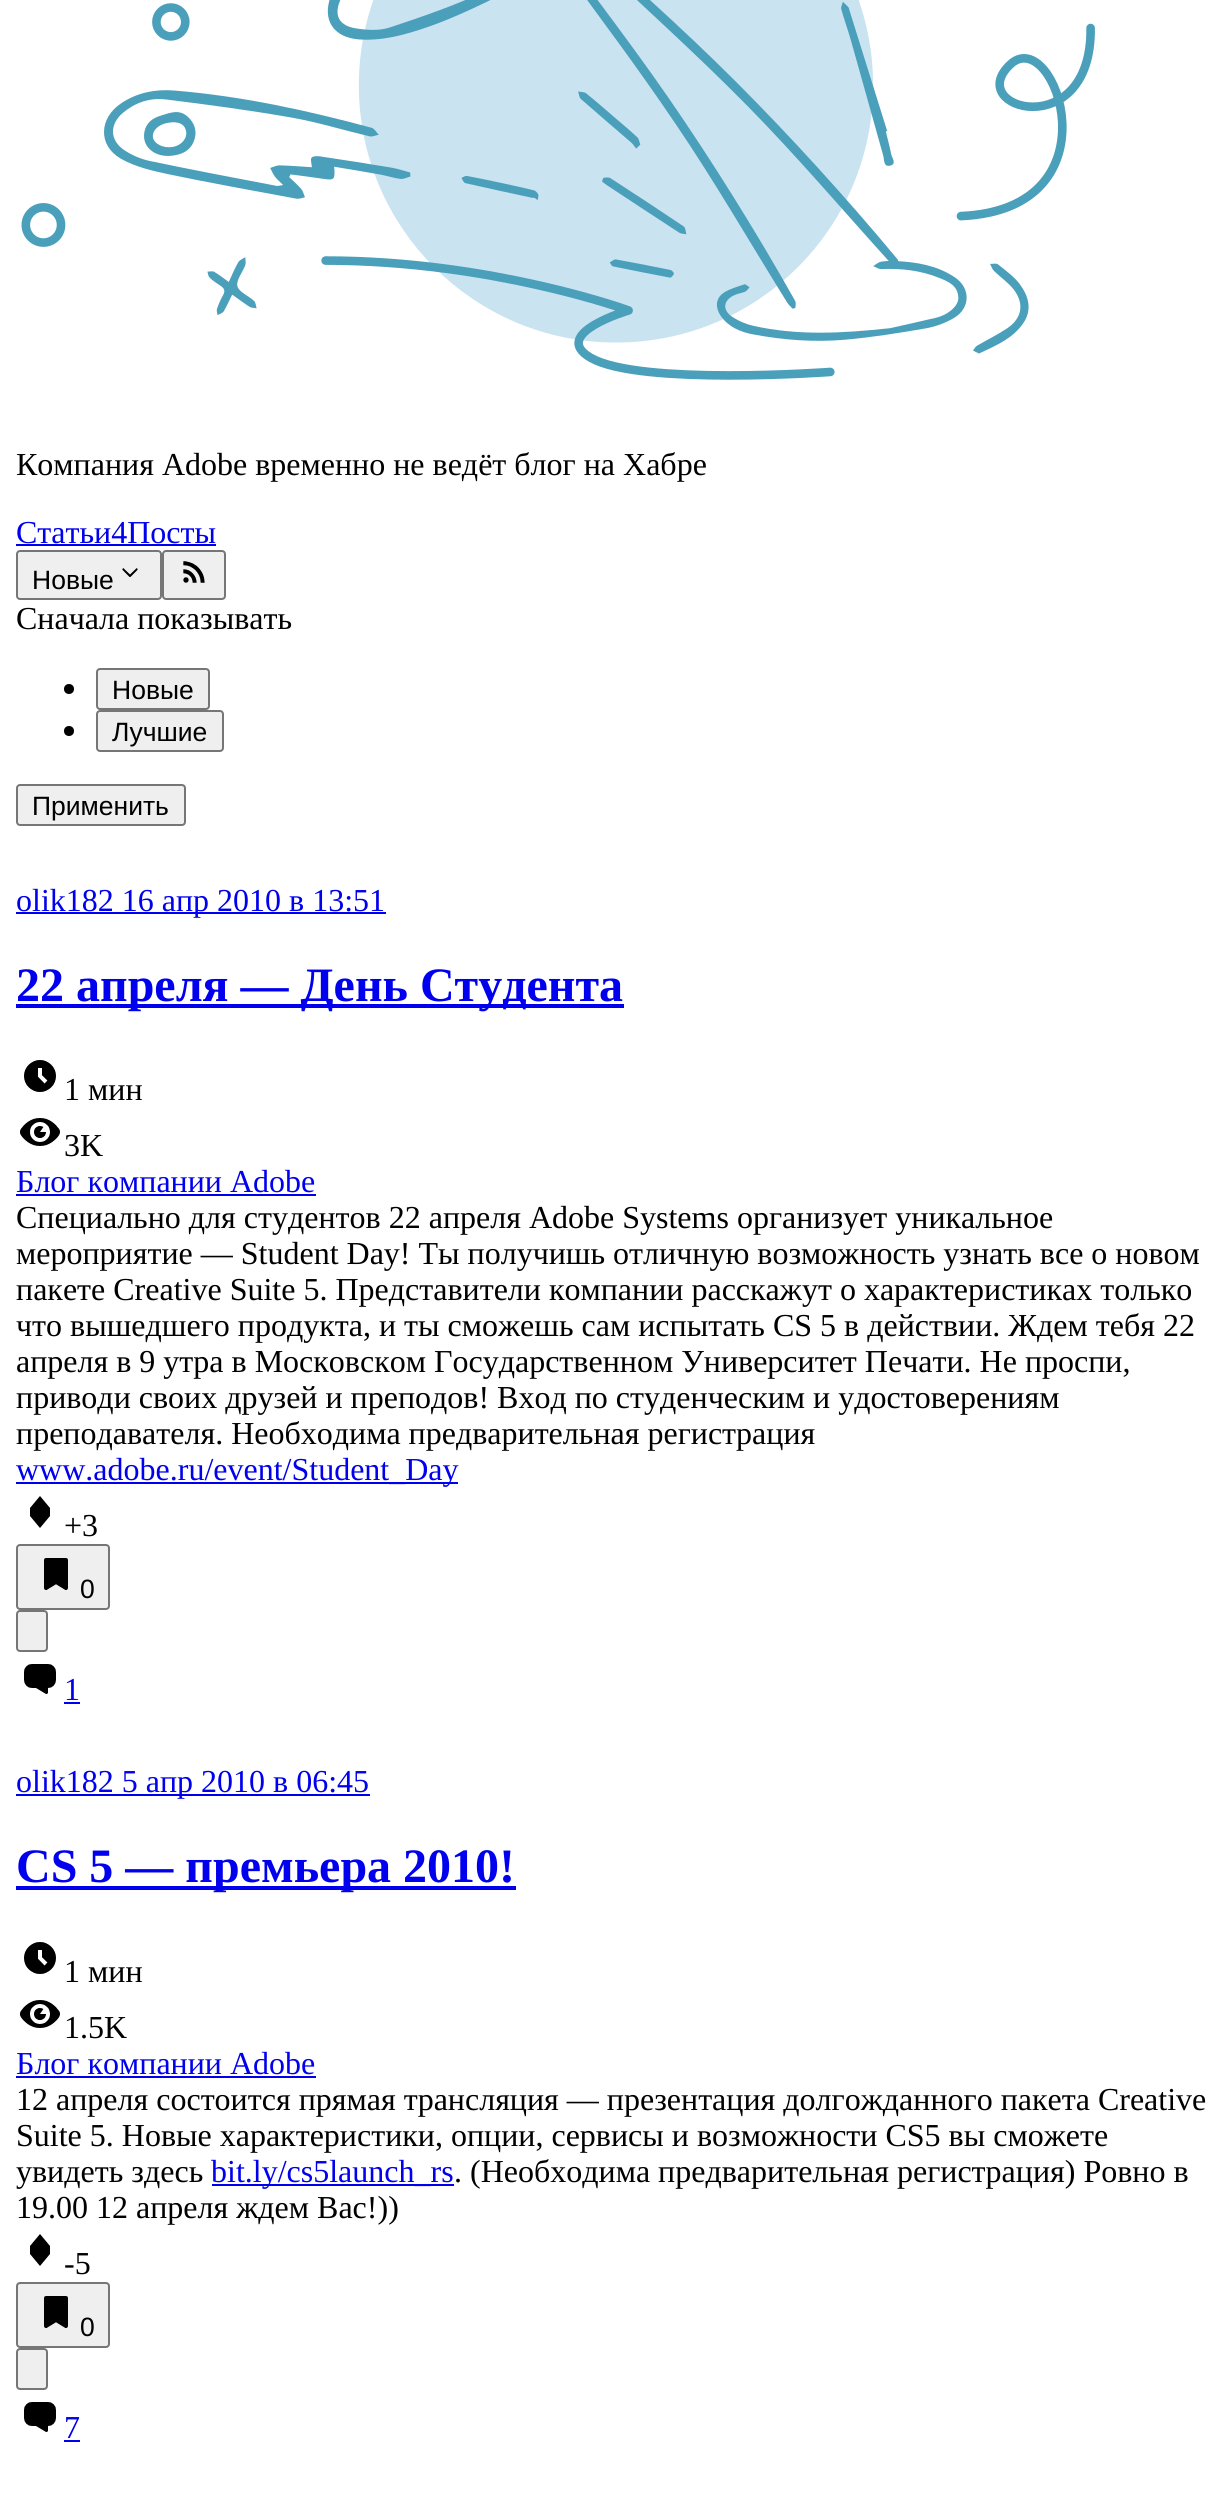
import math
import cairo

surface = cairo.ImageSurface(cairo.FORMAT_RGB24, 1231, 2497)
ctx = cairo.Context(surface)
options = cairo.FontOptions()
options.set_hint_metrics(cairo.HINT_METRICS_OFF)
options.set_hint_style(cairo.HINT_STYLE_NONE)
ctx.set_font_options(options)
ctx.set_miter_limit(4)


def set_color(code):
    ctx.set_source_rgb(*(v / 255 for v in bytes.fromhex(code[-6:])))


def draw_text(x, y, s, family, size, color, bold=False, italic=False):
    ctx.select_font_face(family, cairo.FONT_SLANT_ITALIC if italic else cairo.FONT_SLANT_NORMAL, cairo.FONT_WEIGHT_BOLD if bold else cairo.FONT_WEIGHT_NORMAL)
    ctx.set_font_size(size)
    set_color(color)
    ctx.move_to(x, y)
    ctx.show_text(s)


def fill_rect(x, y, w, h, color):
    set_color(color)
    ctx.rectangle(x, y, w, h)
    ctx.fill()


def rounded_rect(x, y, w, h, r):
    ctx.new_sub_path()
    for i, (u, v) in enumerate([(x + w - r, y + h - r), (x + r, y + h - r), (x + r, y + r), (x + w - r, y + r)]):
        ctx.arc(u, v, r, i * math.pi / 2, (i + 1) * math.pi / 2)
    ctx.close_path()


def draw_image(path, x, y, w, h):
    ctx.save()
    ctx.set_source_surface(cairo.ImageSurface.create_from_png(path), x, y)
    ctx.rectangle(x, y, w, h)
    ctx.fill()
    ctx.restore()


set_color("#ffffff")
ctx.paint()
draw_image("assets/img1.png", 21, 0, 1074, 380)
draw_text(16, 475, "Компания Adobe временно не ведёт блог на Хабре", "Liberation Serif", 32, "#000000")
draw_text(16, 543, "Статьи4Посты", "Liberation Serif", 32, "#0000ee")
fill_rect(16, 544, 200, 2, "#0000ee")
set_color("#efefef")
rounded_rect(17, 551, 144, 48, 3)
ctx.fill_preserve()
set_color("#767676")
ctx.stroke()
draw_text(32, 589, "Новые", "Liberation Sans", 26.5, "#000000")
draw_image("assets/img2.png", 122, 568, 16, 9)
set_color("#efefef")
rounded_rect(163, 551, 62, 48, 3)
ctx.fill_preserve()
set_color("#767676")
ctx.stroke()
draw_image("assets/img3.png", 183, 561, 22, 22)
draw_text(16, 629, "Сначала показывать", "Liberation Serif", 32, "#000000")
ctx.new_path()
ctx.arc(69, 689, 5, 0, 2 * math.pi)
ctx.fill()
set_color("#efefef")
rounded_rect(97, 669, 112, 40, 3)
ctx.fill_preserve()
set_color("#767676")
ctx.stroke()
draw_text(112, 699, "Новые", "Liberation Sans", 26.5, "#000000")
ctx.new_path()
ctx.arc(69, 731, 5, 0, 2 * math.pi)
ctx.fill()
set_color("#efefef")
rounded_rect(97, 711, 126, 40, 3)
ctx.fill_preserve()
set_color("#767676")
ctx.stroke()
draw_text(112, 741, "Лучшие", "Liberation Sans", 26.5, "#000000")
set_color("#efefef")
rounded_rect(17, 785, 168, 40, 3)
ctx.fill_preserve()
set_color("#767676")
ctx.stroke()
draw_text(32, 815, "Применить", "Liberation Sans", 26.5, "#000000")
fill_rect(16, 912, 370, 2, "#0000ee")
draw_text(16, 911, "olik182 16 апр 2010 в 13:51", "Liberation Serif", 32, "#0000ee")
fill_rect(16, 1004, 608, 4, "#0000ee")
draw_text(16, 1001, "22 апреля — День Студента", "Liberation Serif", 48, "#0000ee", bold=True)
draw_image("assets/img4.png", 24, 1060, 32, 32)
draw_text(64, 1100, "1 мин", "Liberation Serif", 32, "#000000")
draw_image("assets/img5.png", 20, 1118, 40, 28)
draw_text(64, 1156, "3K", "Liberation Serif", 32, "#000000")
draw_text(16, 1192, "Блог компании Adobe", "Liberation Serif", 32, "#0000ee")
fill_rect(16, 1194, 300, 2, "#0000ee")
draw_text(16, 1228, "Специально для студентов 22 апреля Adobe Systems организует уникальное", "Liberation Serif", 32, "#000000")
draw_text(16, 1264, "мероприятие — Student Day! Ты получишь отличную возможность узнать все о новом", "Liberation Serif", 32, "#000000")
draw_text(16, 1300, "пакете Creative Suite 5. Представители компании расскажут о характеристиках только", "Liberation Serif", 32, "#000000")
draw_text(16, 1336, "что вышедшего продукта, и ты сможешь сам испытать CS 5 в действии. Ждем тебя 22", "Liberation Serif", 32, "#000000")
draw_text(16, 1372, "апреля в 9 утра в Московском Государственном Университет Печати. Не проспи,", "Liberation Serif", 32, "#000000")
draw_text(16, 1408, "приводи своих друзей и преподов! Вход по студенческим и удостоверениям", "Liberation Serif", 32, "#000000")
draw_text(16, 1444, "преподавателя. Необходима предварительная регистрация", "Liberation Serif", 32, "#000000")
fill_rect(16, 1482, 442, 2, "#0000ee")
draw_text(16, 1480, "www.adobe.ru/event/Student_Day", "Liberation Serif", 32, "#0000ee")
draw_image("assets/img6.png", 30, 1496, 20, 32)
draw_text(64, 1536, "+3", "Liberation Serif", 32, "#000000")
set_color("#efefef")
rounded_rect(17, 1545, 92, 64, 3)
ctx.fill_preserve()
set_color("#767676")
ctx.stroke()
draw_image("assets/img7.png", 44, 1558, 24, 32)
draw_text(80, 1598, "0", "Liberation Sans", 26.5, "#000000")
set_color("#efefef")
rounded_rect(17, 1611, 30, 40, 3)
ctx.fill_preserve()
set_color("#767676")
ctx.stroke()
draw_image("assets/img8.png", 24, 1664, 32, 30)
draw_text(64, 1700, "1", "Liberation Serif", 32, "#0000ee")
fill_rect(64, 1702, 16, 2, "#0000ee")
fill_rect(16, 1794, 354, 2, "#0000ee")
draw_text(16, 1792, "olik182 5 апр 2010 в 06:45", "Liberation Serif", 32, "#0000ee")
fill_rect(16, 1886, 500, 4, "#0000ee")
draw_text(16, 1882, "CS 5 — премьера 2010!", "Liberation Serif", 48, "#0000ee", bold=True)
draw_image("assets/img4.png", 24, 1942, 32, 32)
draw_text(64, 1982, "1 мин", "Liberation Serif", 32, "#000000")
draw_image("assets/img5.png", 20, 2000, 40, 28)
draw_text(64, 2038, "1.5K", "Liberation Serif", 32, "#000000")
draw_text(16, 2074, "Блог компании Adobe", "Liberation Serif", 32, "#0000ee")
fill_rect(16, 2076, 300, 2, "#0000ee")
draw_text(16, 2110, "12 апреля состоится прямая трансляция — презентация долгожданного пакета Creative", "Liberation Serif", 32, "#000000")
draw_text(16, 2146, "Suite 5. Новые характеристики, опции, сервисы и возможности CS5 вы сможете", "Liberation Serif", 32, "#000000")
draw_text(16, 2182, "увидеть здесь", "Liberation Serif", 32, "#000000")
fill_rect(212, 2184, 242, 2, "#0000ee")
draw_text(211, 2182, "bit.ly/cs5launch_rs", "Liberation Serif", 32, "#0000ee")
draw_text(454, 2182, ". (Необходима предварительная регистрация) Ровно в", "Liberation Serif", 32, "#000000")
draw_text(16, 2218, "19.00 12 апреля ждем Вас!))", "Liberation Serif", 32, "#000000")
draw_image("assets/img6.png", 30, 2234, 20, 32)
draw_text(64, 2274, "-5", "Liberation Serif", 32, "#000000")
set_color("#efefef")
rounded_rect(17, 2283, 92, 64, 3)
ctx.fill_preserve()
set_color("#767676")
ctx.stroke()
draw_image("assets/img7.png", 44, 2296, 24, 32)
draw_text(80, 2336, "0", "Liberation Sans", 26.5, "#000000")
set_color("#efefef")
rounded_rect(17, 2349, 30, 40, 3)
ctx.fill_preserve()
set_color("#767676")
ctx.stroke()
draw_image("assets/img8.png", 24, 2402, 32, 30)
draw_text(64, 2438, "7", "Liberation Serif", 32, "#0000ee")
fill_rect(64, 2440, 16, 2, "#0000ee")
surface.write_to_png("output.png")
